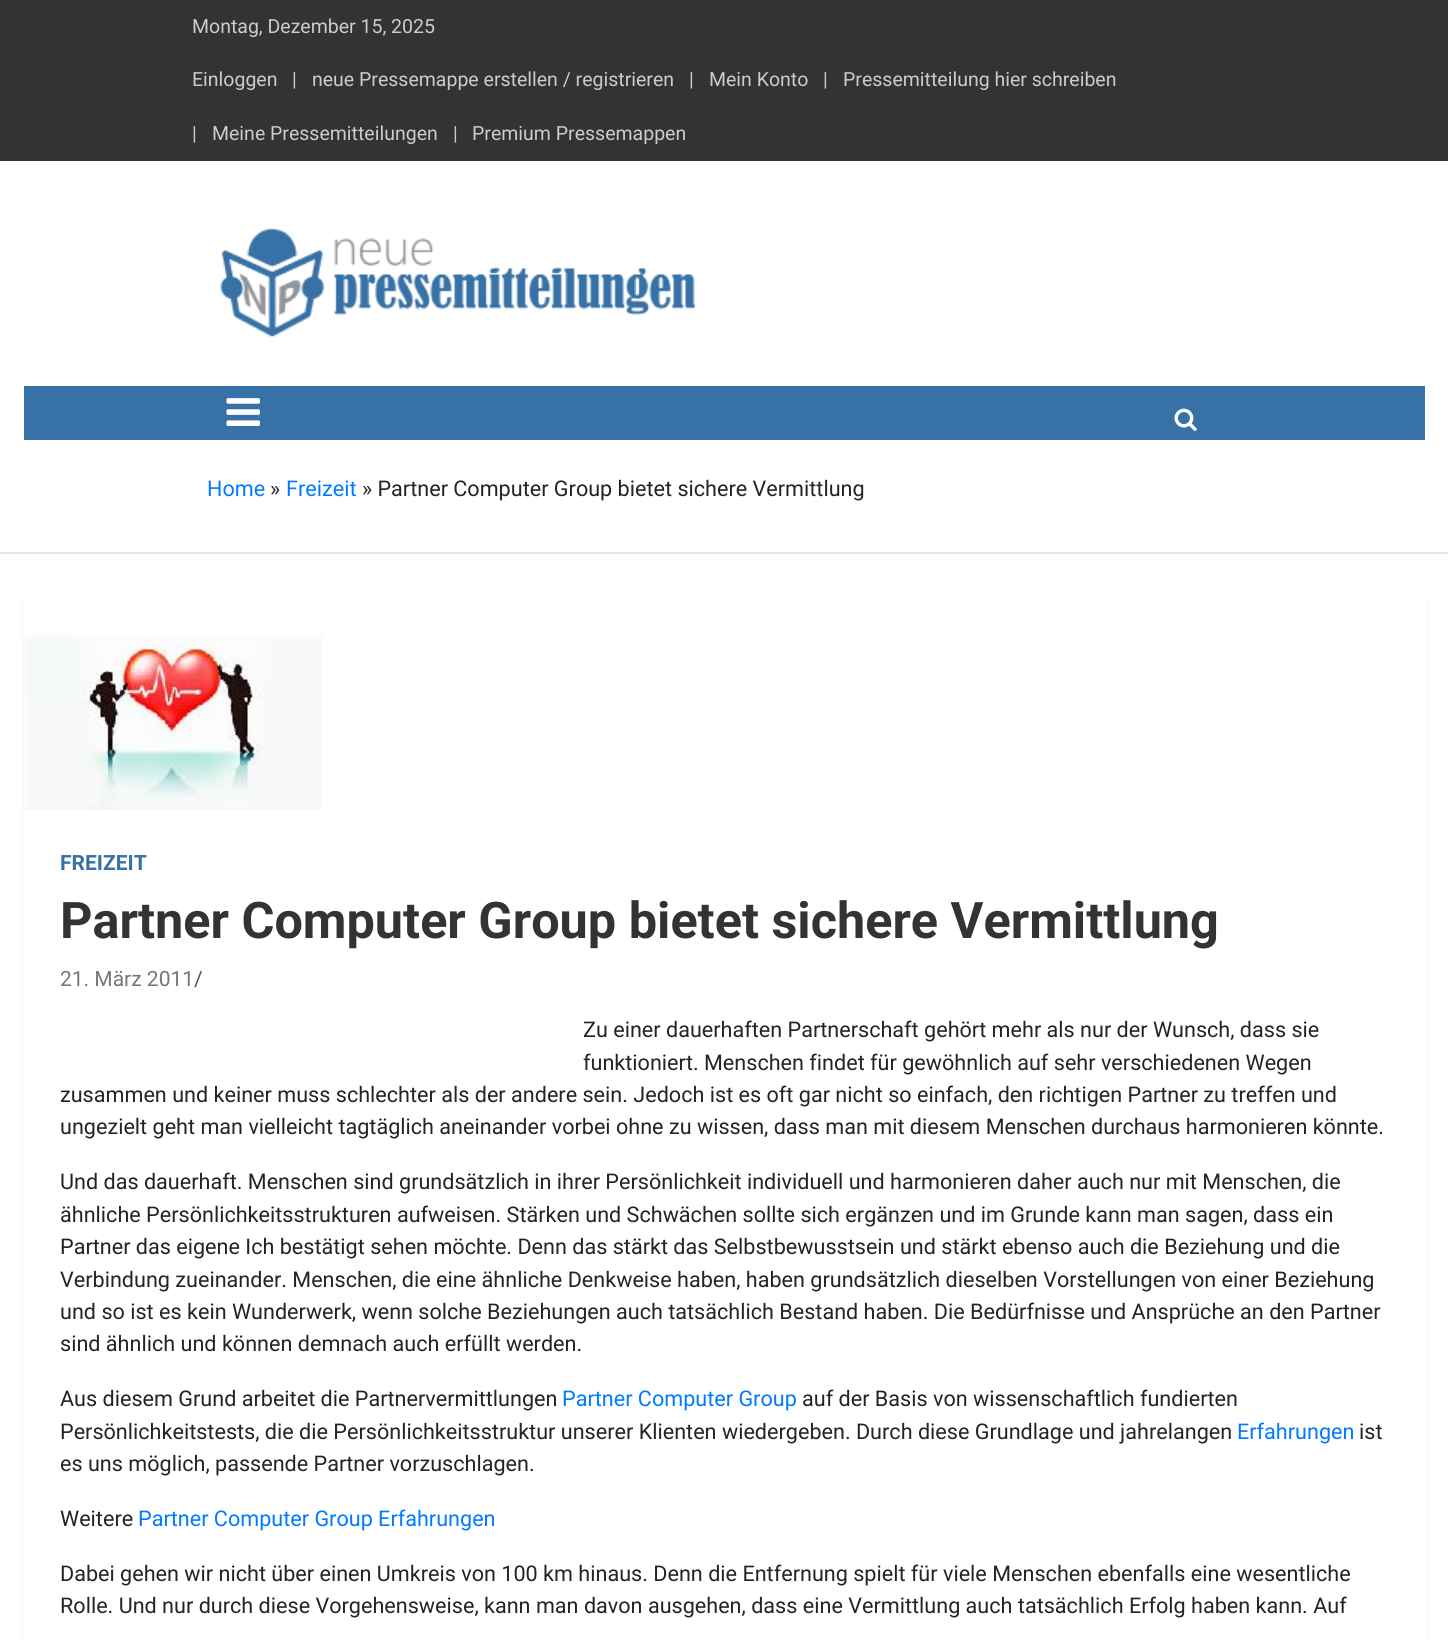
import math
import cairo

surface = cairo.ImageSurface(cairo.FORMAT_RGB24, 1448, 1640)
ctx = cairo.Context(surface)
options = cairo.FontOptions()
options.set_hint_metrics(cairo.HINT_METRICS_OFF)
options.set_hint_style(cairo.HINT_STYLE_NONE)
ctx.set_font_options(options)
ctx.set_miter_limit(4)


def set_color(code):
    ctx.set_source_rgb(*(v / 255 for v in bytes.fromhex(code[-6:])))


def draw_text(x, y, s, family, size, color, bold=False, italic=False):
    ctx.select_font_face(family, cairo.FONT_SLANT_ITALIC if italic else cairo.FONT_SLANT_NORMAL, cairo.FONT_WEIGHT_BOLD if bold else cairo.FONT_WEIGHT_NORMAL)
    ctx.set_font_size(size)
    set_color(color)
    ctx.move_to(x, y)
    ctx.show_text(s)


def fill_rect(x, y, w, h, color):
    set_color(color)
    ctx.rectangle(x, y, w, h)
    ctx.fill()


def rounded_rect(x, y, w, h, r):
    ctx.new_sub_path()
    for i, (u, v) in enumerate([(x + w - r, y + h - r), (x + r, y + h - r), (x + r, y + r), (x + w - r, y + r)]):
        ctx.arc(u, v, r, i * math.pi / 2, (i + 1) * math.pi / 2)
    ctx.close_path()


def draw_shadow(x, y, w, h, r, blur, alpha):
    ctx.push_group_with_content(cairo.CONTENT_ALPHA)
    ctx.set_operator(cairo.OPERATOR_SOURCE)
    for i in range(15, -16, -2):
        e = blur * i / 6
        if min(w, h) + 2 * e > 0:
            ctx.set_source_rgba(0, 0, 0, alpha * math.erfc((i - 1) / 8.5) / 2)
            rounded_rect(x - e, y - e, w + 2 * e, h + 2 * e, max(0, min(r + e + blur * .6, min(w, h) / 2 + e)))
            ctx.fill()
    ctx.mask(ctx.pop_group())


def draw_image(path, x, y, w, h):
    ctx.save()
    ctx.set_source_surface(cairo.ImageSurface.create_from_png(path), x, y)
    ctx.rectangle(x, y, w, h)
    ctx.fill()
    ctx.restore()


set_color("#ffffff")
ctx.paint()
fill_rect(0, 0, 1448, 161, "#333333")
draw_text(192, 33, "Montag, Dezember 15, 2025", "Roboto", 19.5, "#cccccc")
draw_text(192, 86, "Einloggen", "Roboto", 19.5, "#cccccc")
draw_text(292, 86, "|", "Roboto", 19.5, "#cccccc")
draw_text(312, 86, "neue Pressemappe erstellen / registrieren", "Roboto", 19.5, "#cccccc")
draw_text(689, 86, "|", "Roboto", 19.5, "#cccccc")
draw_text(709, 86, "Mein Konto", "Roboto", 19.5, "#cccccc")
draw_text(823, 86, "|", "Roboto", 19.5, "#cccccc")
draw_text(843, 86, "Pressemitteilung hier schreiben", "Roboto", 19.5, "#cccccc")
draw_text(192, 140, "|", "Roboto", 19.5, "#cccccc")
draw_text(212, 140, "Meine Pressemitteilungen", "Roboto", 19.5, "#cccccc")
draw_text(453, 140, "|", "Roboto", 19.5, "#cccccc")
draw_text(472, 140, "Premium Pressemappen", "Roboto", 19.5, "#cccccc")
draw_image("assets/img1.png", 220, 227, 477, 111)
fill_rect(24, 386, 1401, 54, "#3771a5")
draw_image("assets/img2.png", 226, 398, 34, 28)
draw_image("assets/img3.png", 1174, 408, 23, 23)
fill_rect(0, 552, 1448, 2, "#e6e6e6")
draw_text(207, 496, "Home", "Roboto", 21.6, "#007bff")
draw_text(270, 496, "»", "Roboto", 21.6, "#212529")
draw_text(286, 496, "Freizeit", "Roboto", 21.6, "#007bff")
draw_text(362, 496, "» Partner Computer Group bietet sichere Vermittlung", "Roboto", 21.6, "#212529")
set_color("#000000")
draw_shadow(23, 600, 1404, 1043, 0, 1, 0.1)
fill_rect(23, 599, 1404, 1041, "#ffffff")
draw_image("assets/img4.png", 23, 634, 300, 176)
draw_text(60, 870, "FREIZEIT", "Roboto", 21, "#3771a5", bold=True)
draw_text(60, 938, "Partner Computer Group bietet sichere Vermittlung", "Roboto", 50.4, "#333333", bold=True)
draw_text(60, 986, "21. März 2011", "Roboto", 21, "#777777")
draw_text(194, 986, "/", "Roboto", 21, "#555555")
draw_text(583, 1037, "Zu einer dauerhaften Partnerschaft gehört mehr als nur der Wunsch, dass sie", "Roboto", 21.6, "#212529")
draw_text(583, 1070, "funktioniert. Menschen findet für gewöhnlich auf sehr verschiedenen Wegen", "Roboto", 21.6, "#212529")
draw_text(60, 1102, "zusammen und keiner muss schlechter als der andere sein. Jedoch ist es oft gar nicht so einfach, den richtigen Partner zu treffen und", "Roboto", 21.6, "#212529")
draw_text(60, 1134, "ungezielt geht man vielleicht tagtäglich aneinander vorbei ohne zu wissen, dass man mit diesem Menschen durchaus harmonieren könnte.", "Roboto", 21.6, "#212529")
draw_text(60, 1189, "Und das dauerhaft. Menschen sind grundsätzlich in ihrer Persönlichkeit individuell und harmonieren daher auch nur mit Menschen, die", "Roboto", 21.6, "#212529")
draw_text(60, 1222, "ähnliche Persönlichkeitsstrukturen aufweisen. Stärken und Schwächen sollte sich ergänzen und im Grunde kann man sagen, dass ein", "Roboto", 21.6, "#212529")
draw_text(60, 1254, "Partner das eigene Ich bestätigt sehen möchte. Denn das stärkt das Selbstbewusstsein und stärkt ebenso auch die Beziehung und die", "Roboto", 21.6, "#212529")
draw_text(60, 1287, "Verbindung zueinander. Menschen, die eine ähnliche Denkweise haben, haben grundsätzlich dieselben Vorstellungen von einer Beziehung", "Roboto", 21.6, "#212529")
draw_text(60, 1319, "und so ist es kein Wunderwerk, wenn solche Beziehungen auch tatsächlich Bestand haben. Die Bedürfnisse und Ansprüche an den Partner", "Roboto", 21.6, "#212529")
draw_text(60, 1351, "sind ähnlich und können demnach auch erfüllt werden.", "Roboto", 21.6, "#212529")
draw_text(60, 1406, "Aus diesem Grund arbeitet die Partnervermittlungen", "Roboto", 21.6, "#212529")
draw_text(562, 1406, "Partner Computer Group", "Roboto", 21.6, "#007bff")
draw_text(802, 1406, "auf der Basis von wissenschaftlich fundierten", "Roboto", 21.6, "#212529")
draw_text(60, 1439, "Persönlichkeitstests, die die Persönlichkeitsstruktur unserer Klienten wiedergeben. Durch diese Grundlage und jahrelangen", "Roboto", 21.6, "#212529")
draw_text(1237, 1439, "Erfahrungen", "Roboto", 21.6, "#007bff")
draw_text(1359, 1439, "ist", "Roboto", 21.6, "#212529")
draw_text(60, 1471, "es uns möglich, passende Partner vorzuschlagen.", "Roboto", 21.6, "#212529")
draw_text(60, 1526, "Weitere", "Roboto", 21.6, "#212529")
draw_text(138, 1526, "Partner Computer Group Erfahrungen", "Roboto", 21.6, "#007bff")
draw_text(60, 1581, "Dabei gehen wir nicht über einen Umkreis von 100 km hinaus. Denn die Entfernung spielt für viele Menschen ebenfalls eine wesentliche", "Roboto", 21.6, "#212529")
draw_text(60, 1613, "Rolle. Und nur durch diese Vorgehensweise, kann man davon ausgehen, dass eine Vermittlung auch tatsächlich Erfolg haben kann. Auf", "Roboto", 21.6, "#212529")
surface.write_to_png("output.png")
